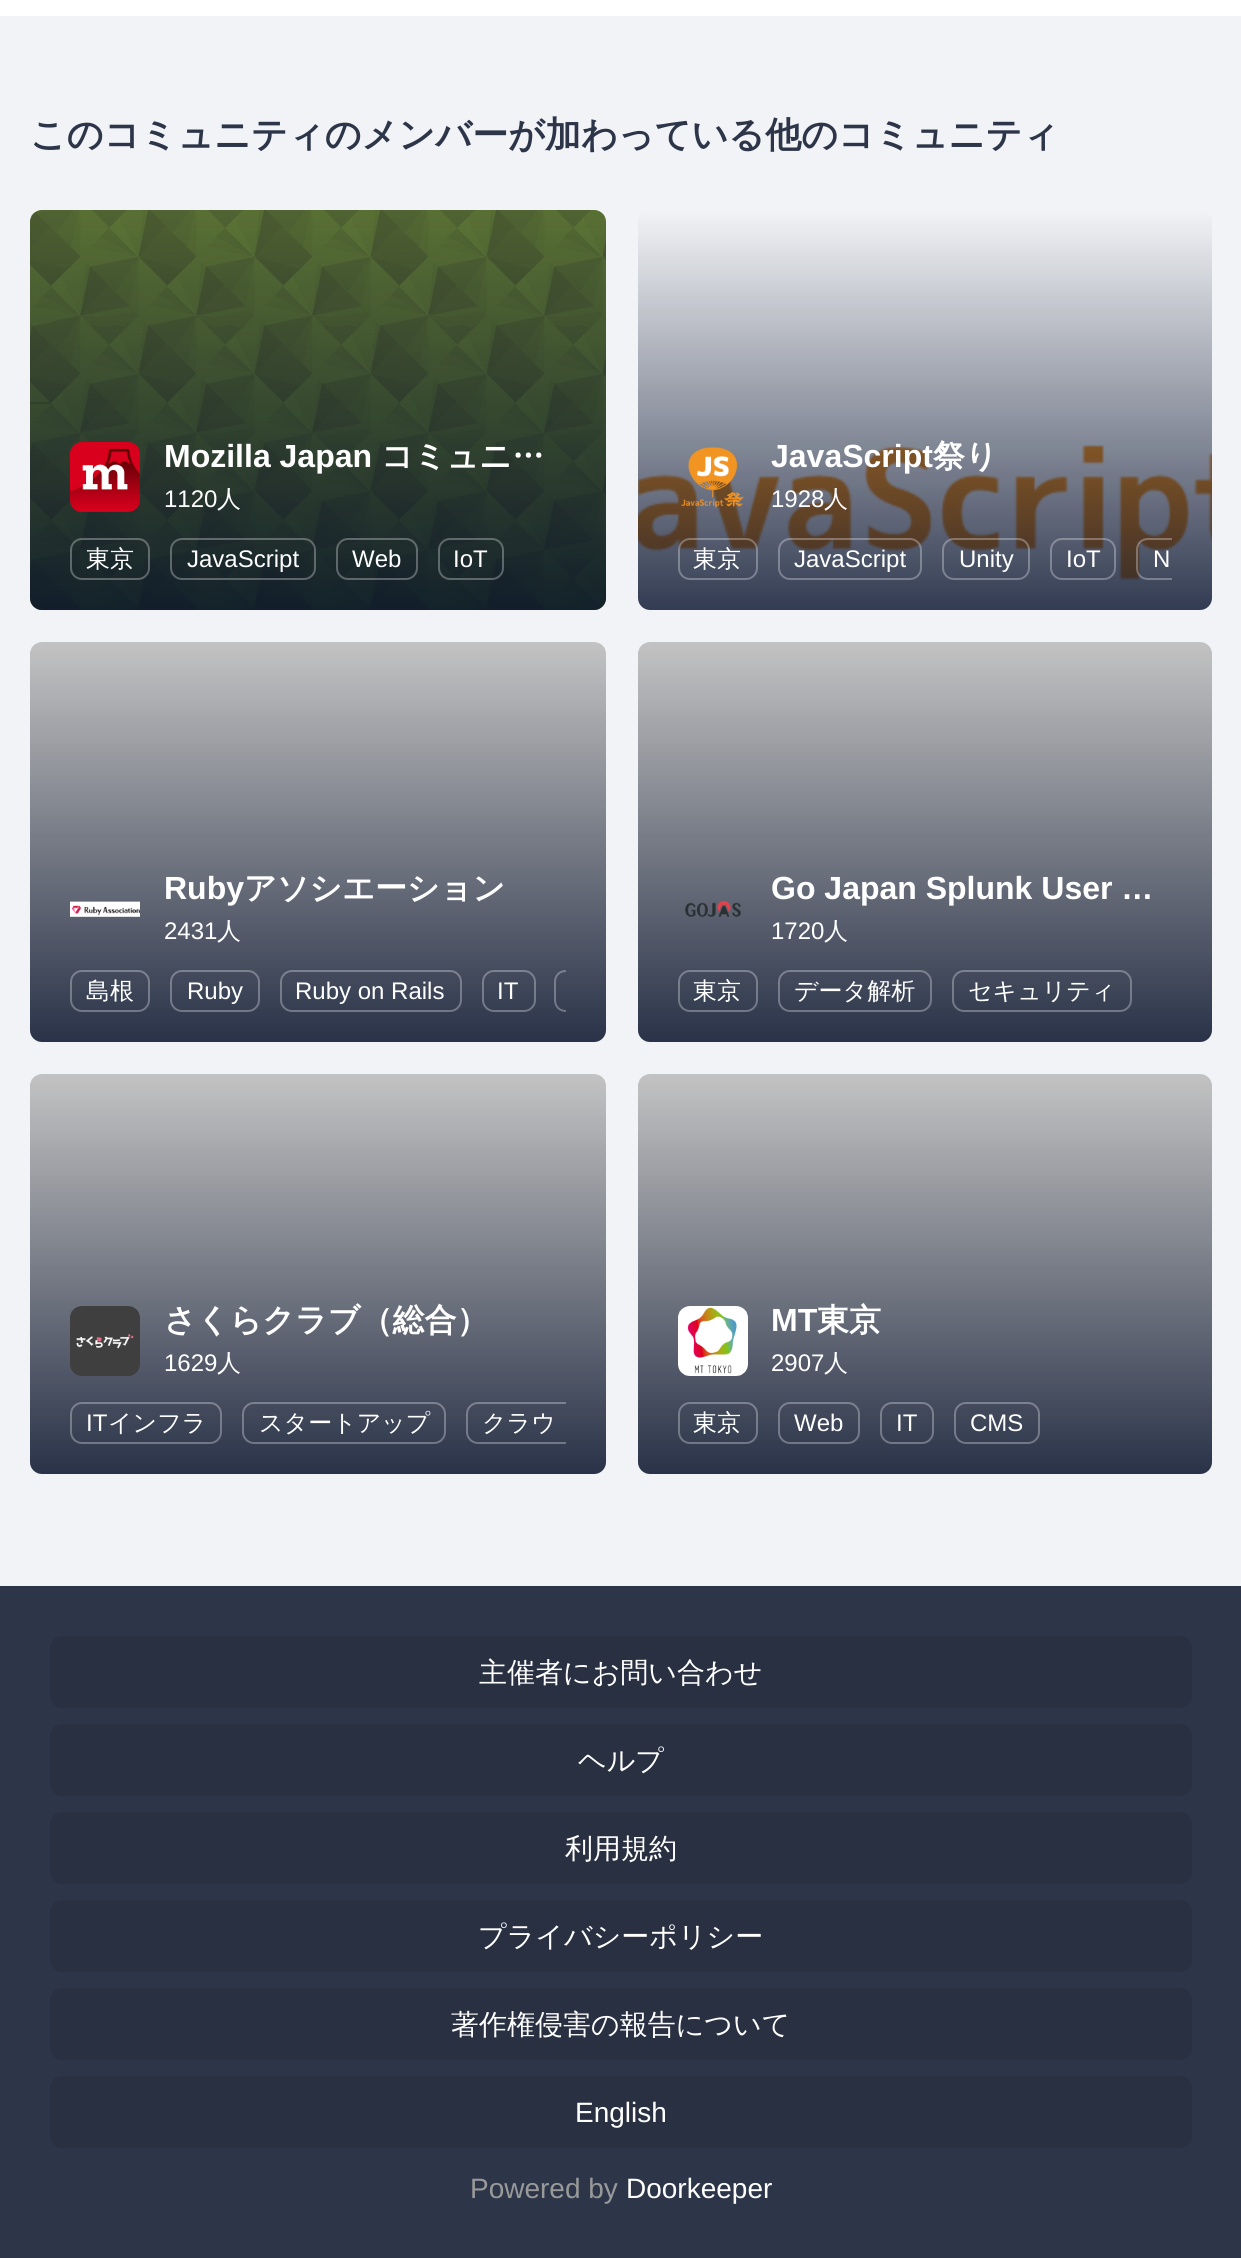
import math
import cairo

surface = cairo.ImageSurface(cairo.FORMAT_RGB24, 1241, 2258)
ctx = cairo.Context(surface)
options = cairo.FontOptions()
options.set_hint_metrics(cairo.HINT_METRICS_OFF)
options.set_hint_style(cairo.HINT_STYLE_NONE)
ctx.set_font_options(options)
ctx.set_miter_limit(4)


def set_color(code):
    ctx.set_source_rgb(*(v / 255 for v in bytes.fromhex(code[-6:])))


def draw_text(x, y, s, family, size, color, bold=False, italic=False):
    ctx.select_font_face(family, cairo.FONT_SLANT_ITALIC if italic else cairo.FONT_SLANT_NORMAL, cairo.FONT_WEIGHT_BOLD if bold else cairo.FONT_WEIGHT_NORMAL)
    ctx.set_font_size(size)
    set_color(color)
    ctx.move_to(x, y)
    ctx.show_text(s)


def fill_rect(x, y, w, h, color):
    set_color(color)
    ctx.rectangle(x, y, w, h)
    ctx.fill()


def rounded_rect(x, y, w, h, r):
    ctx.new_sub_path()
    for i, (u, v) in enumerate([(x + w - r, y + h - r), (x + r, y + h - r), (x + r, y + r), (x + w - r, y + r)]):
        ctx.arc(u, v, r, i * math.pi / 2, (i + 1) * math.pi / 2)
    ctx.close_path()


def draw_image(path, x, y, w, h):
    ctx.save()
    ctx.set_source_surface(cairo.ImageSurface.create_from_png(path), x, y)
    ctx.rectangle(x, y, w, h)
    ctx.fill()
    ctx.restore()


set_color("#f2f3f6")
ctx.paint()
fill_rect(0, 0, 1241, 16, "#ffffff")
draw_text(30, 147, "このコミュニティのメンバーが加わっている他のコミュニティ", "WenQuanYi Zen Hei", 36, "#2d3549", bold=True)
set_color("#8ab840")
rounded_rect(30, 210, 576, 400, 12)
ctx.fill()
draw_image("assets/img1.png", 30, 210, 576, 400)
gradient = cairo.LinearGradient(318, 210, 318, 610)
gradient.add_color_stop_rgba(0, 0.012, 0.055, 0.161, 0)
gradient.add_color_stop_rgba(1, 0.012, 0.055, 0.161, 0.8)
ctx.set_source(gradient)
rounded_rect(30, 210, 576, 400, 12)
ctx.fill()
draw_image("assets/img2.png", 70, 442, 70, 70)
draw_text(164, 467, "Mozilla Japan", "Liberation Sans", 32, "#ffffff", bold=True)
draw_text(381, 467, "コミュニ…", "WenQuanYi Zen Hei", 32, "#ffffff", bold=True)
draw_text(164, 507, "1120", "Liberation Sans", 24, "#ffffff")
draw_text(217, 507, "人", "WenQuanYi Zen Hei Medium", 24, "#ffffff")
rounded_rect(71, 539, 78, 40, 11)
ctx.set_source_rgba(1, 1, 1, 0.3)
ctx.stroke()
draw_text(86, 567, "東京", "WenQuanYi Zen Hei Medium", 24, "#ffffff")
rounded_rect(171, 539, 144, 40, 11)
ctx.set_source_rgba(1, 1, 1, 0.3)
ctx.stroke()
draw_text(187, 567, "JavaScript", "Liberation Sans", 24, "#ffffff")
rounded_rect(337, 539, 80, 40, 11)
ctx.set_source_rgba(1, 1, 1, 0.3)
ctx.stroke()
draw_text(352, 567, "Web", "Liberation Sans", 24, "#ffffff")
rounded_rect(439, 539, 64, 40, 11)
ctx.set_source_rgba(1, 1, 1, 0.3)
ctx.stroke()
draw_text(453, 567, "IoT", "Liberation Sans", 24, "#ffffff")
draw_image("assets/img3.png", 638, 445, 574, 136)
gradient = cairo.LinearGradient(925, 210, 925, 610)
gradient.add_color_stop_rgba(0, 0.012, 0.055, 0.161, 0)
gradient.add_color_stop_rgba(1, 0.012, 0.055, 0.161, 0.8)
ctx.set_source(gradient)
rounded_rect(638, 210, 574, 400, 12)
ctx.fill()
draw_image("assets/img4.png", 681, 447, 63, 61)
draw_text(771, 467, "JavaScript", "Liberation Sans", 32, "#ffffff", bold=True)
draw_text(933, 467, "祭り", "WenQuanYi Zen Hei", 32, "#ffffff", bold=True)
draw_text(771, 507, "1928", "Liberation Sans", 24, "#ffffff")
draw_text(824, 507, "人", "WenQuanYi Zen Hei Medium", 24, "#ffffff")
rounded_rect(679, 539, 78, 40, 11)
ctx.set_source_rgba(1, 1, 1, 0.3)
ctx.stroke()
draw_text(693, 567, "東京", "WenQuanYi Zen Hei Medium", 24, "#ffffff")
rounded_rect(779, 539, 142, 40, 11)
ctx.set_source_rgba(1, 1, 1, 0.3)
ctx.stroke()
draw_text(794, 567, "JavaScript", "Liberation Sans", 24, "#ffffff")
rounded_rect(943, 539, 86, 40, 11)
ctx.set_source_rgba(1, 1, 1, 0.3)
ctx.stroke()
draw_text(959, 567, "Unity", "Liberation Sans", 24, "#ffffff")
rounded_rect(1051, 539, 64, 40, 11)
ctx.set_source_rgba(1, 1, 1, 0.3)
ctx.stroke()
draw_text(1066, 567, "IoT", "Liberation Sans", 24, "#ffffff")
ctx.save()
ctx.rectangle(678, 538, 494, 42)
ctx.clip()
ctx.set_source_rgba(1, 1, 1, 0.3)
ctx.new_path()
ctx.move_to(1148, 538)
ctx.curve_to(1141, 538, 1136, 543, 1136, 550)
ctx.line_to(1136, 568)
ctx.curve_to(1136, 575, 1141, 580, 1148, 580)
ctx.line_to(1212, 580)
ctx.line_to(1212, 578)
ctx.line_to(1148, 578)
ctx.curve_to(1142, 578, 1138, 574, 1138, 568)
ctx.line_to(1138, 550)
ctx.curve_to(1138, 544, 1142, 540, 1148, 540)
ctx.line_to(1212, 540)
ctx.line_to(1212, 538)
ctx.close_path()
ctx.fill()
ctx.restore()
draw_text(1153, 567, "N", "Liberation Sans", 24, "#ffffff")
draw_image("assets/img5.png", 30, 642, 576, 400)
gradient = cairo.LinearGradient(318, 642, 318, 1042)
gradient.add_color_stop_rgba(0, 0.012, 0.055, 0.161, 0)
gradient.add_color_stop_rgba(1, 0.012, 0.055, 0.161, 0.8)
ctx.set_source(gradient)
rounded_rect(30, 642, 576, 400, 12)
ctx.fill()
draw_image("assets/img6.png", 70, 901, 70, 16)
draw_text(164, 899, "Ruby", "Liberation Sans", 32, "#ffffff", bold=True)
draw_text(244, 899, "アソシエーション", "WenQuanYi Zen Hei", 32, "#ffffff", bold=True)
draw_text(164, 939, "2431", "Liberation Sans", 24, "#ffffff")
draw_text(217, 939, "人", "WenQuanYi Zen Hei Medium", 24, "#ffffff")
rounded_rect(71, 971, 78, 40, 11)
ctx.set_source_rgba(1, 1, 1, 0.3)
ctx.stroke()
draw_text(86, 999, "島根", "WenQuanYi Zen Hei Medium", 24, "#ffffff")
rounded_rect(171, 971, 88, 40, 11)
ctx.set_source_rgba(1, 1, 1, 0.3)
ctx.stroke()
draw_text(187, 999, "Ruby", "Liberation Sans", 24, "#ffffff")
rounded_rect(281, 971, 180, 40, 11)
ctx.set_source_rgba(1, 1, 1, 0.3)
ctx.stroke()
draw_text(295, 999, "Ruby on Rails", "Liberation Sans", 24, "#ffffff")
rounded_rect(483, 971, 52, 40, 11)
ctx.set_source_rgba(1, 1, 1, 0.3)
ctx.stroke()
draw_text(497, 999, "IT", "Liberation Sans", 24, "#ffffff")
ctx.save()
ctx.rectangle(70, 970, 496, 42)
ctx.clip()
ctx.set_source_rgba(1, 1, 1, 0.3)
ctx.new_path()
ctx.move_to(566, 970)
ctx.curve_to(559, 970, 554, 975, 554, 982)
ctx.line_to(554, 1000)
ctx.curve_to(554, 1007, 559, 1012, 566, 1012)
ctx.line_to(606, 1012)
ctx.line_to(606, 1010)
ctx.line_to(566, 1010)
ctx.curve_to(560, 1010, 556, 1006, 556, 1000)
ctx.line_to(556, 982)
ctx.curve_to(556, 976, 560, 972, 566, 972)
ctx.line_to(606, 972)
ctx.line_to(606, 970)
ctx.close_path()
ctx.fill()
ctx.restore()
draw_image("assets/img7.png", 638, 642, 574, 400)
gradient = cairo.LinearGradient(925, 642, 925, 1042)
gradient.add_color_stop_rgba(0, 0.012, 0.055, 0.161, 0)
gradient.add_color_stop_rgba(1, 0.012, 0.055, 0.161, 0.8)
ctx.set_source(gradient)
rounded_rect(638, 642, 574, 400, 12)
ctx.fill()
draw_image("assets/img8.png", 685, 900, 56, 17)
draw_text(771, 899, "Go Japan Splunk User …", "Liberation Sans", 32, "#ffffff", bold=True)
draw_text(771, 939, "1720", "Liberation Sans", 24, "#ffffff")
draw_text(824, 939, "人", "WenQuanYi Zen Hei Medium", 24, "#ffffff")
rounded_rect(679, 971, 78, 40, 11)
ctx.set_source_rgba(1, 1, 1, 0.3)
ctx.stroke()
draw_text(693, 999, "東京", "WenQuanYi Zen Hei Medium", 24, "#ffffff")
rounded_rect(779, 971, 152, 40, 11)
ctx.set_source_rgba(1, 1, 1, 0.3)
ctx.stroke()
draw_text(794, 999, "データ解析", "WenQuanYi Zen Hei Medium", 24, "#ffffff")
rounded_rect(953, 971, 178, 40, 11)
ctx.set_source_rgba(1, 1, 1, 0.3)
ctx.stroke()
draw_text(968, 999, "セキュリティ", "WenQuanYi Zen Hei Medium", 24, "#ffffff")
draw_image("assets/img9.png", 30, 1074, 576, 400)
gradient = cairo.LinearGradient(318, 1074, 318, 1474)
gradient.add_color_stop_rgba(0, 0.012, 0.055, 0.161, 0)
gradient.add_color_stop_rgba(1, 0.012, 0.055, 0.161, 0.8)
ctx.set_source(gradient)
rounded_rect(30, 1074, 576, 400, 12)
ctx.fill()
draw_image("assets/img10.png", 70, 1306, 70, 70)
draw_text(164, 1331, "さくらクラブ（総合）", "WenQuanYi Zen Hei", 32, "#ffffff", bold=True)
draw_text(164, 1371, "1629", "Liberation Sans", 24, "#ffffff")
draw_text(217, 1371, "人", "WenQuanYi Zen Hei Medium", 24, "#ffffff")
rounded_rect(71, 1403, 150, 40, 11)
ctx.set_source_rgba(1, 1, 1, 0.3)
ctx.stroke()
draw_text(86, 1431, "IT", "Liberation Sans", 24, "#ffffff")
draw_text(108, 1431, "インフラ", "WenQuanYi Zen Hei Medium", 24, "#ffffff")
rounded_rect(243, 1403, 202, 40, 11)
ctx.set_source_rgba(1, 1, 1, 0.3)
ctx.stroke()
draw_text(259, 1431, "スタートアップ", "WenQuanYi Zen Hei Medium", 24, "#ffffff")
ctx.save()
ctx.rectangle(70, 1402, 496, 42)
ctx.clip()
rounded_rect(467, 1403, 130, 40, 11)
ctx.set_source_rgba(1, 1, 1, 0.3)
ctx.stroke()
ctx.restore()
draw_text(482, 1431, "クラウ", "WenQuanYi Zen Hei Medium", 24, "#ffffff")
draw_image("assets/img11.png", 638, 1074, 574, 400)
gradient = cairo.LinearGradient(925, 1074, 925, 1474)
gradient.add_color_stop_rgba(0, 0.012, 0.055, 0.161, 0)
gradient.add_color_stop_rgba(1, 0.012, 0.055, 0.161, 0.8)
ctx.set_source(gradient)
rounded_rect(638, 1074, 574, 400, 12)
ctx.fill()
draw_image("assets/img12.png", 678, 1306, 70, 70)
draw_text(771, 1331, "MT", "Liberation Sans", 32, "#ffffff", bold=True)
draw_text(817, 1331, "東京", "WenQuanYi Zen Hei", 32, "#ffffff", bold=True)
draw_text(771, 1371, "2907", "Liberation Sans", 24, "#ffffff")
draw_text(824, 1371, "人", "WenQuanYi Zen Hei Medium", 24, "#ffffff")
rounded_rect(679, 1403, 78, 40, 11)
ctx.set_source_rgba(1, 1, 1, 0.3)
ctx.stroke()
draw_text(693, 1431, "東京", "WenQuanYi Zen Hei Medium", 24, "#ffffff")
rounded_rect(779, 1403, 80, 40, 11)
ctx.set_source_rgba(1, 1, 1, 0.3)
ctx.stroke()
draw_text(794, 1431, "Web", "Liberation Sans", 24, "#ffffff")
rounded_rect(881, 1403, 52, 40, 11)
ctx.set_source_rgba(1, 1, 1, 0.3)
ctx.stroke()
draw_text(896, 1431, "IT", "Liberation Sans", 24, "#ffffff")
rounded_rect(955, 1403, 84, 40, 11)
ctx.set_source_rgba(1, 1, 1, 0.3)
ctx.stroke()
draw_text(970, 1431, "CMS", "Liberation Sans", 24, "#ffffff")
fill_rect(0, 1586, 1241, 672, "#2d3549")
set_color("#293042")
rounded_rect(50, 1636, 1142, 72, 12)
ctx.fill()
draw_text(479, 1682, "主催者にお問い合わせ", "WenQuanYi Zen Hei Medium", 28, "#ffffff")
set_color("#293042")
rounded_rect(50, 1724, 1142, 72, 12)
ctx.fill()
draw_text(578, 1770, "ヘルプ", "WenQuanYi Zen Hei Medium", 28, "#ffffff")
set_color("#293042")
rounded_rect(50, 1812, 1142, 72, 12)
ctx.fill()
draw_text(565, 1858, "利用規約", "WenQuanYi Zen Hei Medium", 28, "#ffffff")
set_color("#293042")
rounded_rect(50, 1900, 1142, 72, 12)
ctx.fill()
draw_text(478, 1946, "プライバシーポリシー", "WenQuanYi Zen Hei Medium", 28, "#ffffff")
set_color("#293042")
rounded_rect(50, 1988, 1142, 72, 12)
ctx.fill()
draw_text(451, 2034, "著作権侵害の報告について", "WenQuanYi Zen Hei Medium", 28, "#ffffff")
set_color("#293042")
rounded_rect(50, 2076, 1142, 72, 12)
ctx.fill()
draw_text(575, 2122, "English", "Liberation Sans", 28, "#ffffff")
draw_text(470, 2198, "Powered by", "Liberation Sans", 28, "#999999")
draw_text(626, 2198, "Doorkeeper", "Liberation Sans", 28, "#ffffff")
surface.write_to_png("output.png")
